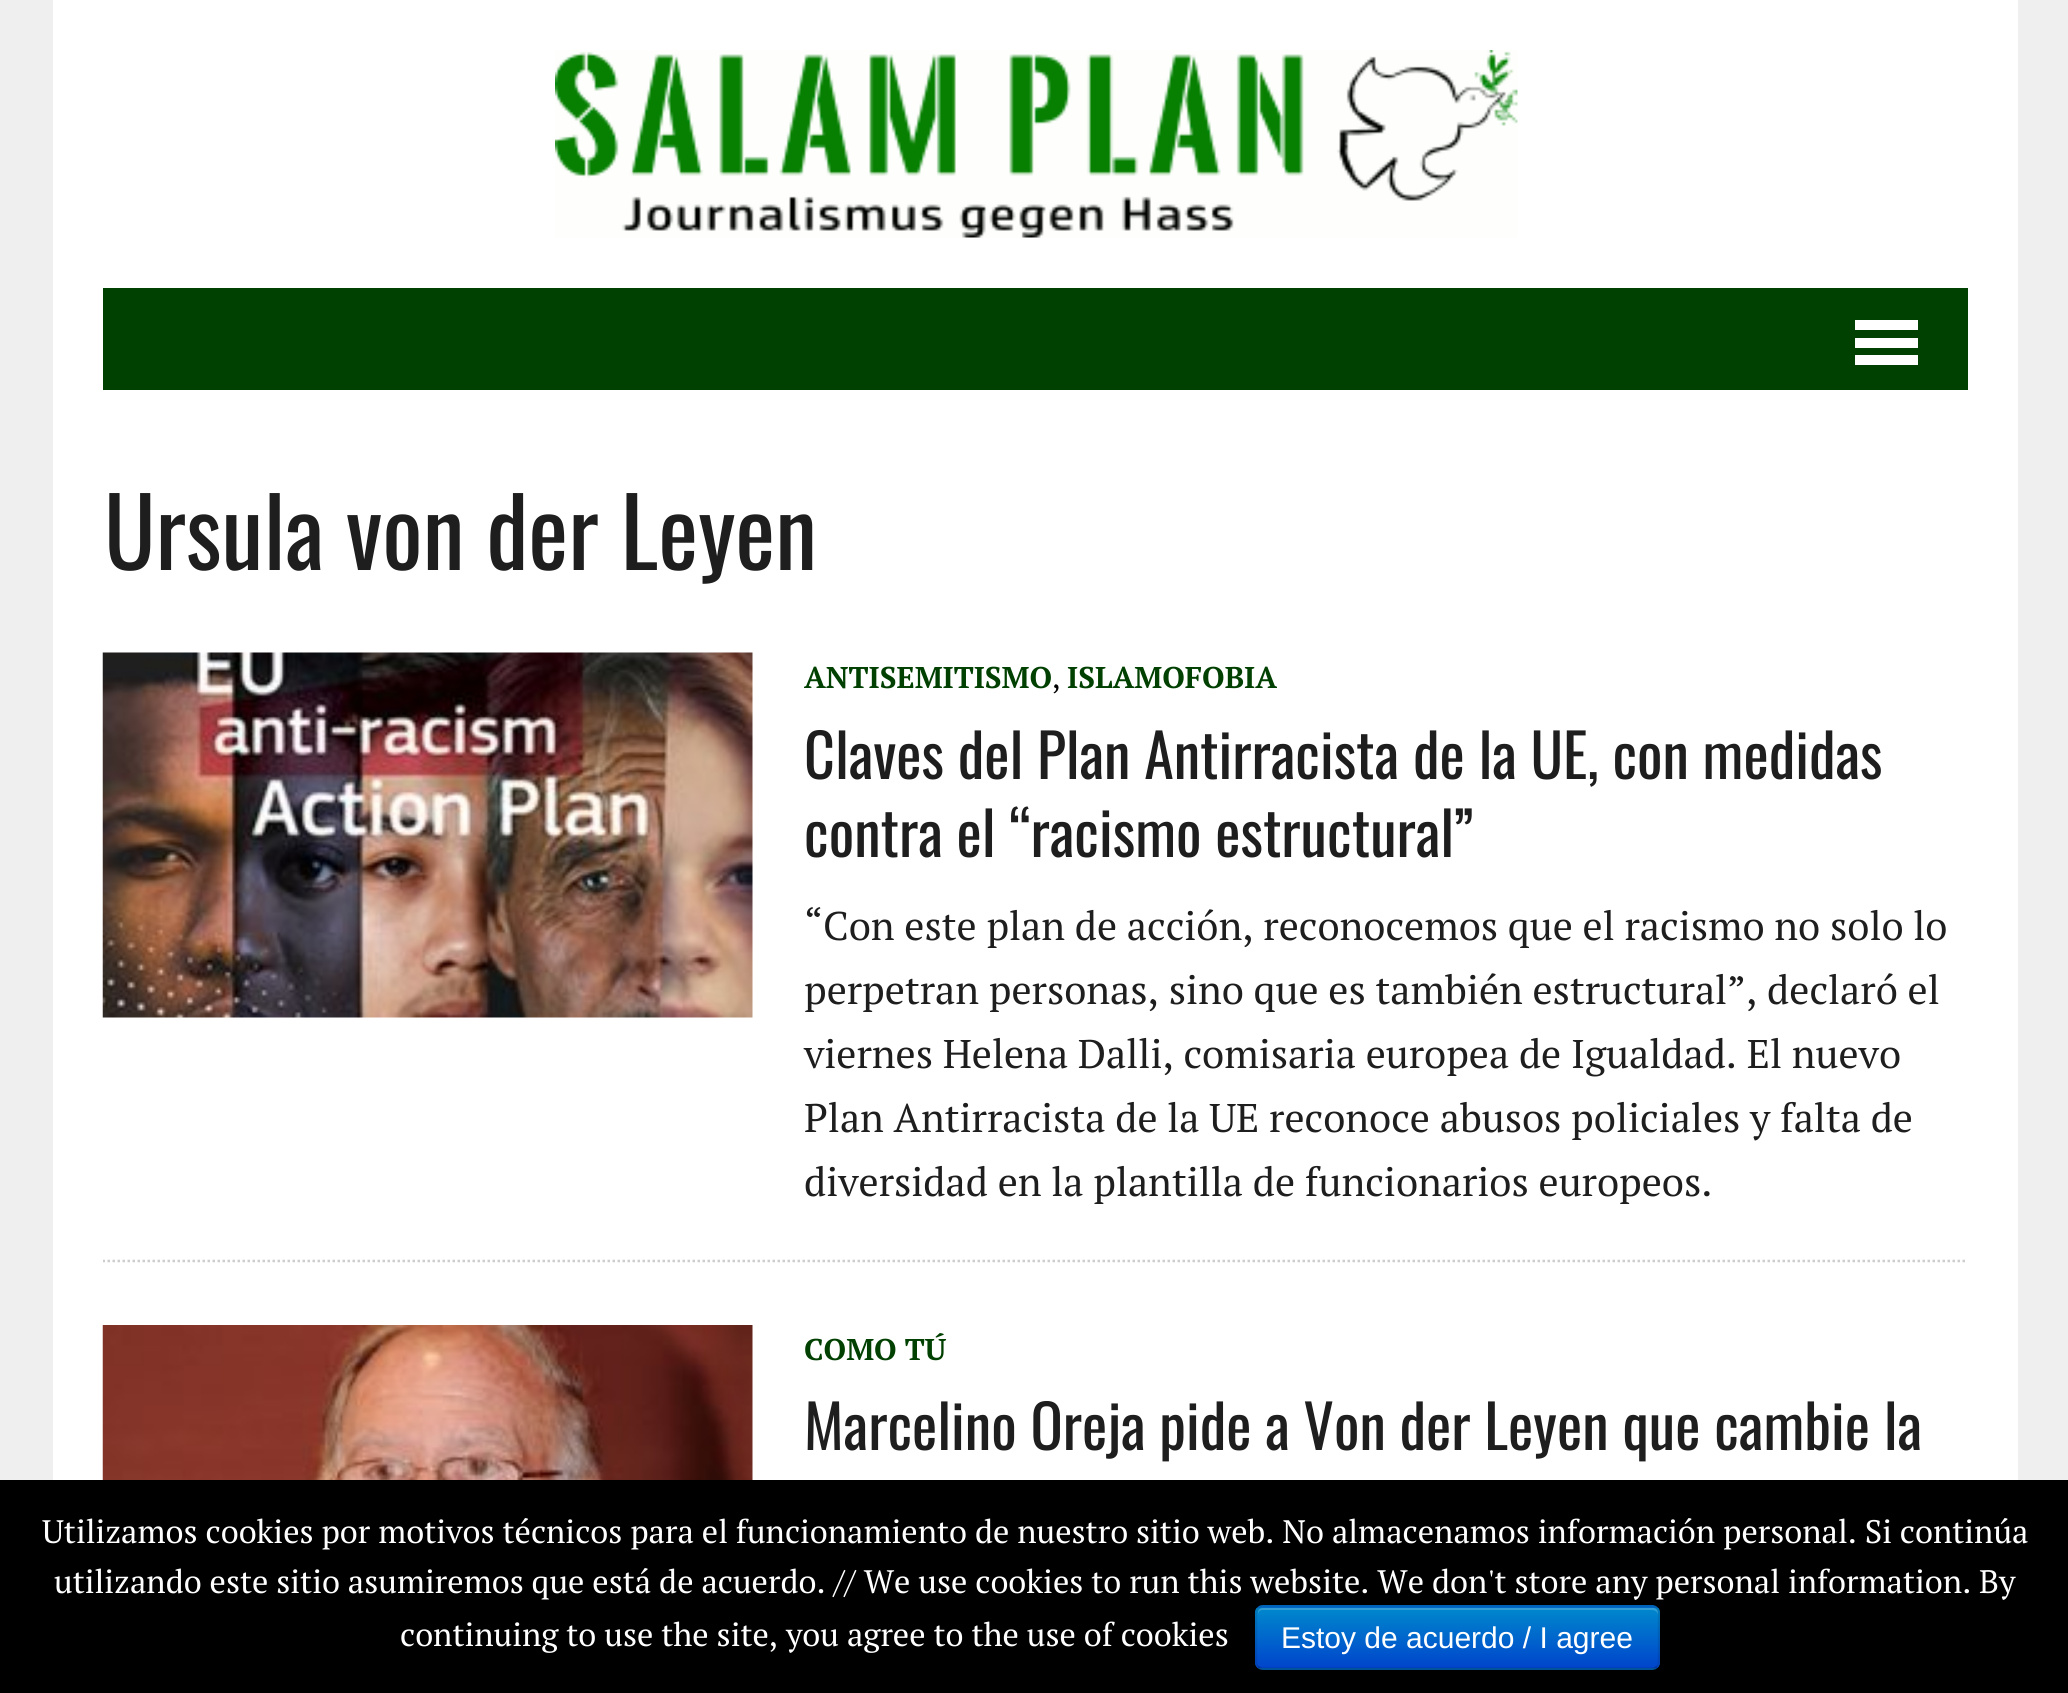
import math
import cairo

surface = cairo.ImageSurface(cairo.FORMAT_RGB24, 2068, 1693)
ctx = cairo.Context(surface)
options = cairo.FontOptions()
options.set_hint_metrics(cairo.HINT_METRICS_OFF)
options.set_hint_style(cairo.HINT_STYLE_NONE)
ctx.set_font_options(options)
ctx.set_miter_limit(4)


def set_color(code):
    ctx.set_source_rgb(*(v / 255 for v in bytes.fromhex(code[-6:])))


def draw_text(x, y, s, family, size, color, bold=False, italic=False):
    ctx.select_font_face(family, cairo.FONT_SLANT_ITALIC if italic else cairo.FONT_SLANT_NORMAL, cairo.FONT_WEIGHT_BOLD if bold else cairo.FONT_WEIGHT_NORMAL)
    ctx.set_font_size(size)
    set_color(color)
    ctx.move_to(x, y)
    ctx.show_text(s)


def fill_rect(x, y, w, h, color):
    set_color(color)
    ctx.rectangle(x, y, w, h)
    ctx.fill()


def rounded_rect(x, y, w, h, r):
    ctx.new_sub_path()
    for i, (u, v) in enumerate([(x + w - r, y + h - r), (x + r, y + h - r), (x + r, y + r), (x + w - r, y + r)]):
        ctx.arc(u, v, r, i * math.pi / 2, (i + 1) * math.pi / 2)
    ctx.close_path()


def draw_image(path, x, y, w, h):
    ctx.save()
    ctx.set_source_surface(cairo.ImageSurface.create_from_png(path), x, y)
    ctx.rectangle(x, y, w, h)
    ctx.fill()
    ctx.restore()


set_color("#efefef")
ctx.paint()
fill_rect(53, 0, 1965, 1480, "#ffffff")
draw_image("assets/img1.png", 555, 50, 963, 188)
fill_rect(103, 288, 1865, 102, "#004000")
fill_rect(1855, 320, 63, 10, "#ffffff")
fill_rect(1855, 338, 63, 10, "#ffffff")
fill_rect(1855, 355, 63, 10, "#ffffff")
draw_text(104, 570, "Ursula von der Leyen", "Oswald", 95, "#1f1e1e")
draw_image("assets/img2.png", 102, 652, 651, 366)
draw_text(804, 688, "ANTISEMITISMO", "PT Serif", 30, "#004000", bold=True)
draw_text(1052, 688, ",", "PT Serif", 30, "#000000")
draw_text(1067, 688, "ISLAMOFOBIA", "PT Serif", 30, "#004000", bold=True)
draw_text(804, 779, "Claves del Plan Antirracista de la UE, con medidas", "Oswald", 60, "#1f1e1e")
draw_text(804, 857, "contra el “racismo estructural”", "Oswald", 60, "#1f1e1e")
draw_text(804, 940, "“Con este plan de acción, reconocemos que el racismo no solo lo", "PT Serif", 40, "#1f1e1e")
draw_text(804, 1004, "perpetran personas, sino que es también estructural”, declaró el", "PT Serif", 40, "#1f1e1e")
draw_text(804, 1068, "viernes Helena Dalli, comisaria europea de Igualdad. El nuevo", "PT Serif", 40, "#1f1e1e")
draw_text(804, 1132, "Plan Antirracista de la UE reconoce abusos policiales y falta de", "PT Serif", 40, "#1f1e1e")
draw_text(804, 1196, "diversidad en la plantilla de funcionarios europeos.", "PT Serif", 40, "#1f1e1e")
ctx.save()
ctx.rectangle(103, 468, 1865, 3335)
ctx.clip()
ctx.new_path()
ctx.move_to(102.5, 1261)
ctx.line_to(1967.5, 1261)
set_color("#cdcdcd")
ctx.set_line_width(2.5)
ctx.set_dash([2.5, 2.5])
ctx.stroke()
ctx.restore()
draw_image("assets/img3.png", 102, 1325, 651, 155)
draw_text(804, 1360, "COMO TÚ", "PT Serif", 30, "#004000", bold=True)
draw_text(804, 1450, "Marcelino Oreja pide a Von der Leyen que cambie la", "Oswald", 60, "#1f1e1e")
fill_rect(0, 1480, 2068, 213, "#000000")
draw_text(42, 1543, "Utilizamos cookies por motivos técnicos para el funcionamiento de nuestro sitio web. No almacenamos información personal. Si continúa", "PT Serif", 32.5, "#ffffff")
draw_text(54, 1593, "utilizando este sitio asumiremos que está de acuerdo. // We use cookies to run this website. We don't store any personal information. By", "PT Serif", 32.5, "#ffffff")
draw_text(400, 1646, "continuing to use the site, you agree to the use of cookies", "PT Serif", 32.5, "#ffffff")
set_color("#006dcc")
rounded_rect(1255, 1605, 405, 65, 8)
ctx.fill()
ctx.save()
rounded_rect(1255, 1605, 405, 65, 8)
ctx.clip()
gradient = cairo.LinearGradient(1458, 1608, 1458, 1668)
gradient.add_color_stop_rgba(0, 0, 0.533, 0.8, 1)
gradient.add_color_stop_rgba(1, 0, 0.267, 0.8, 1)
ctx.set_source(gradient)
ctx.rectangle(1255, 1608, 405, 60)
ctx.fill()
ctx.restore()
ctx.set_source_rgba(1, 1, 1, 0.2)
ctx.new_path()
ctx.move_to(1262, 1610)
ctx.line_to(1652, 1610)
ctx.curve_to(1655, 1610, 1658, 1612, 1658, 1615)
ctx.line_to(1658, 1613)
ctx.curve_to(1658, 1610, 1656, 1608, 1653, 1608)
ctx.line_to(1263, 1608)
ctx.curve_to(1260, 1608, 1258, 1610, 1258, 1613)
ctx.line_to(1258, 1615)
ctx.curve_to(1258, 1612, 1260, 1610, 1262, 1610)
ctx.close_path()
ctx.fill()
ctx.new_path()
ctx.move_to(1657, 1667)
ctx.curve_to(1655.5, 1668, 1654, 1669, 1652.5, 1669)
ctx.line_to(1262.5, 1669)
ctx.curve_to(1261, 1669, 1259.5, 1668, 1258, 1667)
ctx.set_source_rgba(0, 0, 0, 0.25)
ctx.set_line_width(2.5)
ctx.stroke()
ctx.new_path()
ctx.move_to(1258, 1667)
ctx.curve_to(1257, 1665.5, 1256, 1664, 1256, 1662.5)
ctx.line_to(1256, 1612.5)
ctx.curve_to(1256, 1611, 1257, 1609.5, 1258, 1608)
ctx.curve_to(1259.5, 1607, 1261, 1606, 1262.5, 1606)
ctx.line_to(1652.5, 1606)
ctx.curve_to(1654, 1606, 1655.5, 1607, 1657, 1608)
ctx.curve_to(1658, 1609.5, 1659, 1611, 1659, 1612.5)
ctx.line_to(1659, 1662.5)
ctx.curve_to(1659, 1664, 1658, 1665.5, 1657, 1667)
ctx.set_source_rgba(0, 0, 0, 0.1)
ctx.stroke()
draw_text(1281, 1648, "Estoy de acuerdo / I agree", "Liberation Sans", 30, "#ffffff")
surface.write_to_png("output.png")
